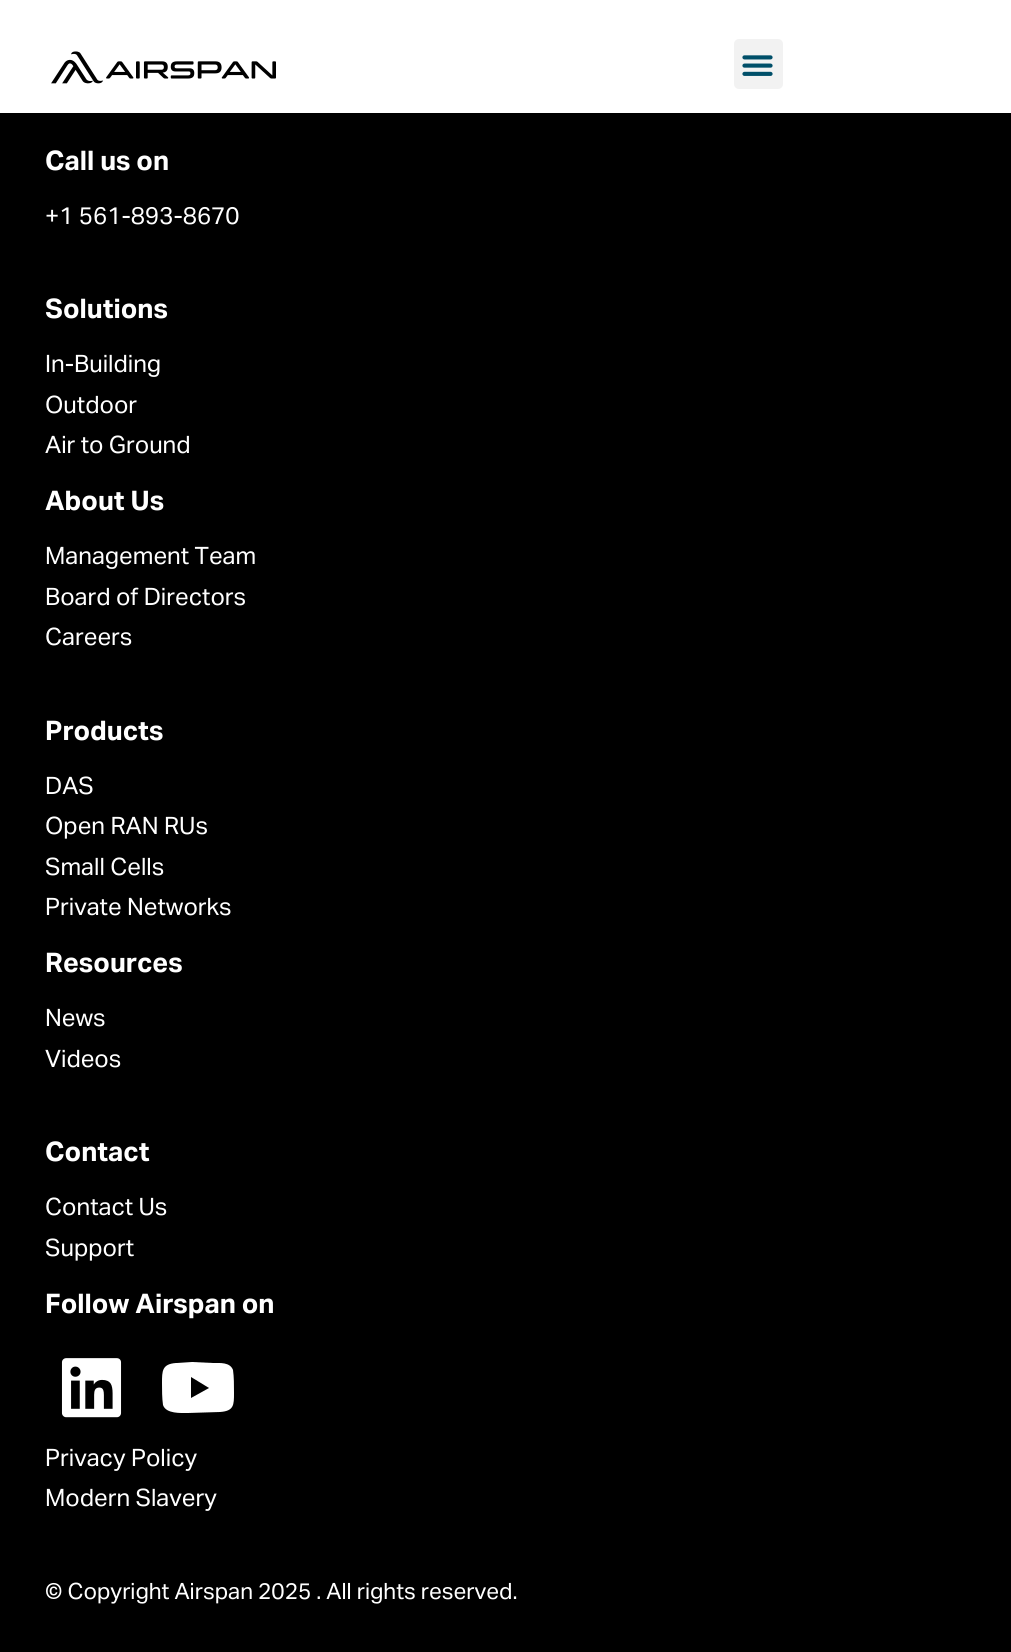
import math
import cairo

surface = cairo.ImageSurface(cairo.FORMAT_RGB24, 1011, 1652)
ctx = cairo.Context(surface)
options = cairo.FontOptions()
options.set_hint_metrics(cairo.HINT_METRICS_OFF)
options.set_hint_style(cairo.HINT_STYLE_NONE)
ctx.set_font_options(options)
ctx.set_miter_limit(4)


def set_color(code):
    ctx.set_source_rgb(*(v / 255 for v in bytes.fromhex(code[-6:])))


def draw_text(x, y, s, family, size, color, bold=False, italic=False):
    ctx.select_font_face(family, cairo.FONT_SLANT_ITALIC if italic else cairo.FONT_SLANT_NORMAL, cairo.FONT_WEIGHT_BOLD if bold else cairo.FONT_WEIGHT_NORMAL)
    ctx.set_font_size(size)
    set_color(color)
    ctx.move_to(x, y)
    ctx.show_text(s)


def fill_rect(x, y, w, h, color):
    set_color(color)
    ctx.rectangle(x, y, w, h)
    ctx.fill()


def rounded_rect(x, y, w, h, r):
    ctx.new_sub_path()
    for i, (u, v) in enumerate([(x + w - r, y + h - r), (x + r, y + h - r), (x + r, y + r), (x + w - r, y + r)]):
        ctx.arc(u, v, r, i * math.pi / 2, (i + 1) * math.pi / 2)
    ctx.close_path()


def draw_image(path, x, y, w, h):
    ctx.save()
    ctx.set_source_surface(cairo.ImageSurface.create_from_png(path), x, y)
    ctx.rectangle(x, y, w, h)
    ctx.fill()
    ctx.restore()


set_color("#000000")
ctx.paint()
fill_rect(0, 0, 1011, 113, "#ffffff")
draw_image("assets/img1.png", 51, 51, 225, 33)
set_color("#f2f2f2")
rounded_rect(734, 39, 49, 50, 5)
ctx.fill()
draw_image("assets/img2.png", 742, 55, 31, 21)
draw_text(45, 170, "Call us on", "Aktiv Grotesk", 27, "#ffffff", bold=True)
draw_text(45, 224, "+1 561-893-8670", "Aktiv Grotesk", 24, "#ffffff")
draw_text(45, 318, "Solutions", "Aktiv Grotesk", 27, "#ffffff", bold=True)
draw_text(45, 372, "In-Building", "Aktiv Grotesk", 24, "#ffffff")
draw_text(45, 413, "Outdoor", "Aktiv Grotesk", 24, "#ffffff")
draw_text(45, 453, "Air to Ground", "Aktiv Grotesk", 24, "#ffffff")
draw_text(45, 510, "About Us", "Aktiv Grotesk", 27, "#ffffff", bold=True)
draw_text(45, 564, "Management Team", "Aktiv Grotesk", 24, "#ffffff")
draw_text(45, 605, "Board of Directors", "Aktiv Grotesk", 24, "#ffffff")
draw_text(45, 645, "Careers", "Aktiv Grotesk", 24, "#ffffff")
draw_text(45, 740, "Products", "Aktiv Grotesk", 27, "#ffffff", bold=True)
draw_text(45, 794, "DAS", "Aktiv Grotesk", 24, "#ffffff")
draw_text(45, 834, "Open RAN RUs", "Aktiv Grotesk", 24, "#ffffff")
draw_text(45, 875, "Small Cells", "Aktiv Grotesk", 24, "#ffffff")
draw_text(45, 915, "Private Networks", "Aktiv Grotesk", 24, "#ffffff")
draw_text(45, 972, "Resources", "Aktiv Grotesk", 27, "#ffffff", bold=True)
draw_text(45, 1026, "News", "Aktiv Grotesk", 24, "#ffffff")
draw_text(45, 1067, "Videos", "Aktiv Grotesk", 24, "#ffffff")
draw_text(45, 1161, "Contact", "Aktiv Grotesk", 27, "#ffffff", bold=True)
draw_text(45, 1215, "Contact Us", "Aktiv Grotesk", 24, "#ffffff")
draw_text(45, 1256, "Support", "Aktiv Grotesk", 24, "#ffffff")
draw_text(45, 1313, "Follow Airspan on", "Aktiv Grotesk", 27, "#ffffff", bold=True)
draw_image("assets/img3.png", 61, 1358, 61, 60)
ctx.new_path()
ctx.move_to(233, 1370)
ctx.curve_to(234, 1377, 234, 1385, 234, 1393)
ctx.curve_to(234, 1405, 234, 1411, 220, 1412)
ctx.line_to(188, 1413)
ctx.curve_to(181, 1413, 166, 1414, 163, 1405)
ctx.curve_to(162, 1398, 162, 1390, 162, 1383)
ctx.curve_to(162, 1371, 162, 1364, 176, 1363)
ctx.line_to(192, 1362)
ctx.line_to(213, 1363)
ctx.curve_to(220, 1363, 230, 1362, 233, 1370)
ctx.close_path()
ctx.move_to(191, 1398)
ctx.line_to(209, 1388)
ctx.line_to(191, 1377)
ctx.close_path()
ctx.fill()
draw_text(45, 1466, "Privacy Policy", "Aktiv Grotesk", 24, "#ffffff")
draw_text(45, 1506, "Modern Slavery", "Aktiv Grotesk", 24, "#ffffff")
draw_text(45, 1599, "© Copyright Airspan 2025 . All rights reserved.", "Aktiv Grotesk", 22.5, "#ffffff")
surface.write_to_png("output.png")
